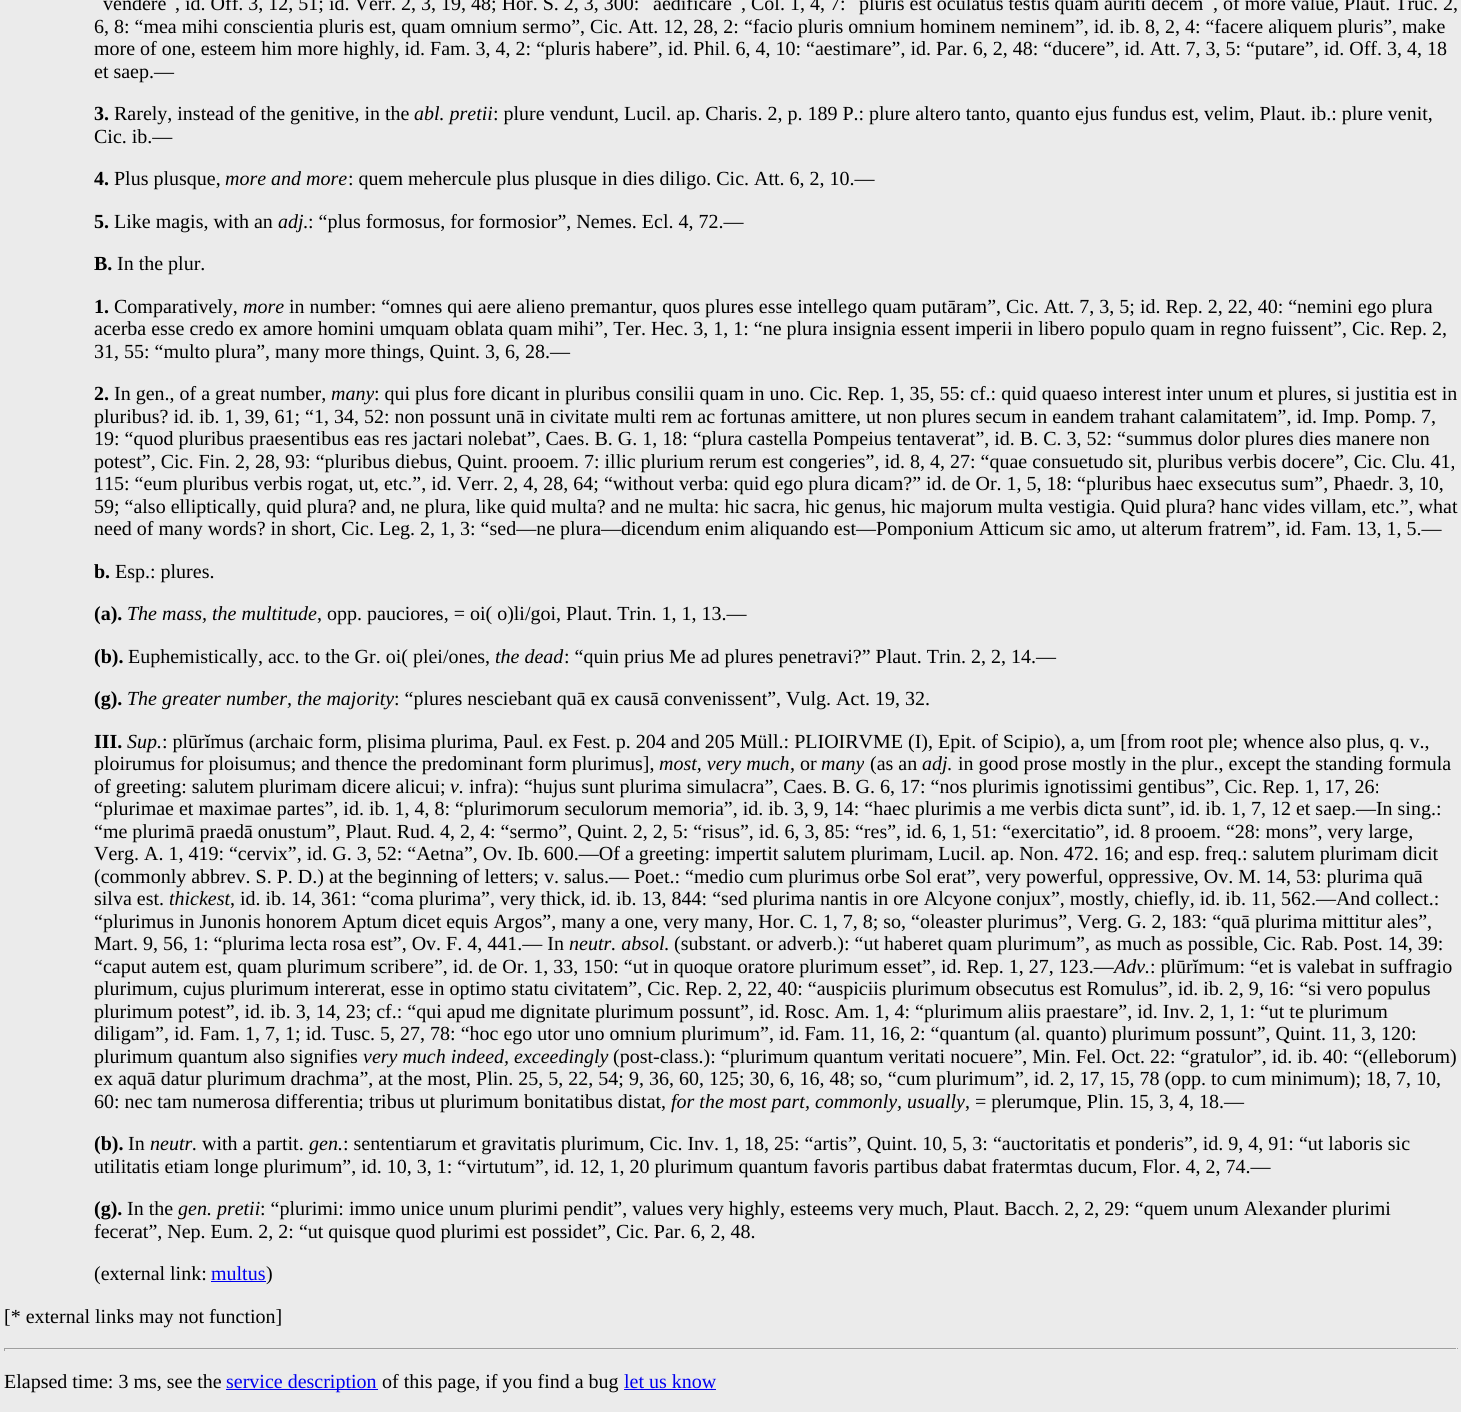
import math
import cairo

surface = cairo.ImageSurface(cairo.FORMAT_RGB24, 1461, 1412)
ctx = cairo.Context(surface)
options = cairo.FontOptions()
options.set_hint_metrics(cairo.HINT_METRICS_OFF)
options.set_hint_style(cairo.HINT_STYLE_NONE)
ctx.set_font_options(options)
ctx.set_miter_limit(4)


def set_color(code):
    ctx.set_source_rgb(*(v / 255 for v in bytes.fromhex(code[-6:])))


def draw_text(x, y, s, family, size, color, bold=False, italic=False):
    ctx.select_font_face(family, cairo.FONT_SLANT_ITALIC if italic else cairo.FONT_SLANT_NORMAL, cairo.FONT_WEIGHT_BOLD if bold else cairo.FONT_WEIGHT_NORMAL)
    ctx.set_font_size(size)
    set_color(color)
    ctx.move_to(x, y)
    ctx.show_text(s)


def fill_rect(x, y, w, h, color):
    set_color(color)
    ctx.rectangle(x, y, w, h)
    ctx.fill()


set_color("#ebebeb")
ctx.paint()
draw_text(103, 10, "vendere", "Liberation Serif", 20, "#000000")
draw_text(175, 10, ", id. Off. 3, 12, 51; id. Verr. 2, 3, 19, 48; Hor. S. 2, 3, 300:", "Liberation Serif", 20, "#000000")
draw_text(653, 10, "aedificare", "Liberation Serif", 20, "#000000")
draw_text(741, 10, ", Col. 1, 4, 7:", "Liberation Serif", 20, "#000000")
draw_text(859, 10, "pluris est oculatus testis quam auriti decem", "Liberation Serif", 20, "#000000")
draw_text(1213, 10, ", of more value, Plaut. Truc. 2,", "Liberation Serif", 20, "#000000")
draw_text(94, 33, "6, 8: “mea mihi conscientia pluris est, quam omnium sermo”, Cic. Att. 12, 28, 2: “facio pluris omnium hominem neminem”, id. ib. 8, 2, 4: “facere aliquem pluris”, make", "Liberation Serif", 20, "#000000")
draw_text(94, 55, "more of one, esteem him more highly, id. Fam. 3, 4, 2: “pluris habere”, id. Phil. 6, 4, 10: “aestimare”, id. Par. 6, 2, 48: “ducere”, id. Att. 7, 3, 5: “putare”, id. Off. 3, 4, 18", "Liberation Serif", 20, "#000000")
draw_text(94, 78, "et saep.—", "Liberation Serif", 20, "#000000")
draw_text(94, 120, "3.", "Liberation Serif", 20, "#000000", bold=True)
draw_text(114, 120, "Rarely, instead of the genitive, in the", "Liberation Serif", 20, "#000000")
draw_text(414, 120, "abl. pretii", "Liberation Serif", 20, "#000000", italic=True)
draw_text(493, 120, ": plure vendunt, Lucil. ap. Charis. 2, p. 189 P.: plure altero tanto, quanto ejus fundus est, velim, Plaut. ib.: plure venit,", "Liberation Serif", 20, "#000000")
draw_text(94, 143, "Cic. ib.—", "Liberation Serif", 20, "#000000")
draw_text(94, 185, "4.", "Liberation Serif", 20, "#000000", bold=True)
draw_text(114, 185, "Plus plusque,", "Liberation Serif", 20, "#000000")
draw_text(225, 185, "more and more", "Liberation Serif", 20, "#000000", italic=True)
draw_text(348, 185, ": quem mehercule plus plusque in dies diligo. Cic. Att. 6, 2, 10.—", "Liberation Serif", 20, "#000000")
draw_text(94, 228, "5.", "Liberation Serif", 20, "#000000", bold=True)
draw_text(114, 228, "Like magis, with an", "Liberation Serif", 20, "#000000")
draw_text(278, 228, "adj.", "Liberation Serif", 20, "#000000", italic=True)
draw_text(308, 228, ": “plus formosus, for formosior”, Nemes. Ecl. 4, 72.—", "Liberation Serif", 20, "#000000")
draw_text(94, 270, "B.", "Liberation Serif", 20, "#000000", bold=True)
draw_text(117, 270, "In the plur.", "Liberation Serif", 20, "#000000")
draw_text(94, 313, "1.", "Liberation Serif", 20, "#000000", bold=True)
draw_text(114, 313, "Comparatively,", "Liberation Serif", 20, "#000000")
draw_text(243, 313, "more", "Liberation Serif", 20, "#000000", italic=True)
draw_text(289, 313, "in number: “omnes qui aere alieno premantur, quos plures esse intellego quam putāram”, Cic. Att. 7, 3, 5; id. Rep. 2, 22, 40: “nemini ego plura", "Liberation Serif", 20, "#000000")
draw_text(94, 335, "acerba esse credo ex amore homini umquam oblata quam mihi”, Ter. Hec. 3, 1, 1: “ne plura insignia essent imperii in libero populo quam in regno fuissent”, Cic. Rep. 2,", "Liberation Serif", 20, "#000000")
draw_text(94, 358, "31, 55: “multo plura”, many more things, Quint. 3, 6, 28.—", "Liberation Serif", 20, "#000000")
draw_text(94, 400, "2.", "Liberation Serif", 20, "#000000", bold=True)
draw_text(114, 400, "In gen., of a great number,", "Liberation Serif", 20, "#000000")
draw_text(331, 400, "many", "Liberation Serif", 20, "#000000", italic=True)
draw_text(374, 400, ": qui plus fore dicant in pluribus consilii quam in uno. Cic. Rep. 1, 35, 55: cf.: quid quaeso interest inter unum et plures, si justitia est in", "Liberation Serif", 20, "#000000")
draw_text(94, 423, "pluribus? id. ib. 1, 39, 61; “1, 34, 52: non possunt unā in civitate multi rem ac fortunas amittere, ut non plures secum in eandem trahant calamitatem”, id. Imp. Pomp. 7,", "Liberation Serif", 20, "#000000")
draw_text(94, 445, "19: “quod pluribus praesentibus eas res jactari nolebat”, Caes. B. G. 1, 18: “plura castella Pompeius tentaverat”, id. B. C. 3, 52: “summus dolor plures dies manere non", "Liberation Serif", 20, "#000000")
draw_text(94, 468, "potest”, Cic. Fin. 2, 28, 93: “pluribus diebus, Quint. prooem. 7: illic plurium rerum est congeries”, id. 8, 4, 27: “quae consuetudo sit, pluribus verbis docere”, Cic. Clu. 41,", "Liberation Serif", 20, "#000000")
draw_text(94, 490, "115: “eum pluribus verbis rogat, ut, etc.”, id. Verr. 2, 4, 28, 64; “without verba: quid ego plura dicam?” id. de Or. 1, 5, 18: “pluribus haec exsecutus sum”, Phaedr. 3, 10,", "Liberation Serif", 20, "#000000")
draw_text(94, 513, "59; “also elliptically, quid plura? and, ne plura, like quid multa? and ne multa: hic sacra, hic genus, hic majorum multa vestigia. Quid plura? hanc vides villam, etc.”, what", "Liberation Serif", 20, "#000000")
draw_text(94, 535, "need of many words? in short, Cic. Leg. 2, 1, 3: “sed—ne plura—dicendum enim aliquando est—Pomponium Atticum sic amo, ut alterum fratrem”, id. Fam. 13, 1, 5.—", "Liberation Serif", 20, "#000000")
draw_text(94, 578, "b.", "Liberation Serif", 20, "#000000", bold=True)
draw_text(115, 578, "Esp.: plures.", "Liberation Serif", 20, "#000000")
draw_text(94, 620, "(a).", "Liberation Serif", 20, "#000000", bold=True)
draw_text(127, 620, "The mass, the multitude", "Liberation Serif", 20, "#000000", italic=True)
draw_text(317, 620, ", opp. pauciores, = oi( o)li/goi, Plaut. Trin. 1, 1, 13.—", "Liberation Serif", 20, "#000000")
draw_text(94, 663, "(b).", "Liberation Serif", 20, "#000000", bold=True)
draw_text(128, 663, "Euphemistically, acc. to the Gr. oi( plei/ones,", "Liberation Serif", 20, "#000000")
draw_text(495, 663, "the dead", "Liberation Serif", 20, "#000000", italic=True)
draw_text(564, 663, ": “quin prius Me ad plures penetravi?” Plaut. Trin. 2, 2, 14.—", "Liberation Serif", 20, "#000000")
draw_text(94, 705, "(g).", "Liberation Serif", 20, "#000000", bold=True)
draw_text(127, 705, "The greater number, the majority", "Liberation Serif", 20, "#000000", italic=True)
draw_text(394, 705, ": “plures nesciebant quā ex causā convenissent”, Vulg. Act. 19, 32.", "Liberation Serif", 20, "#000000")
draw_text(94, 748, "III.", "Liberation Serif", 20, "#000000", bold=True)
draw_text(127, 748, "Sup.", "Liberation Serif", 20, "#000000", italic=True)
draw_text(162, 748, ": plūrĭmus (archaic form, plisima plurima, Paul. ex Fest. p. 204 and 205 Müll.: PLIOIRVME (I), Epit. of Scipio), a, um [from root ple; whence also plus, q. v.,", "Liberation Serif", 20, "#000000")
draw_text(94, 770, "ploirumus for ploisumus; and thence the predominant form plurimus],", "Liberation Serif", 20, "#000000")
draw_text(659, 770, "most, very much", "Liberation Serif", 20, "#000000", italic=True)
draw_text(790, 770, ", or", "Liberation Serif", 20, "#000000")
draw_text(821, 770, "many", "Liberation Serif", 20, "#000000", italic=True)
draw_text(870, 770, "(as an", "Liberation Serif", 20, "#000000")
draw_text(922, 770, "adj.", "Liberation Serif", 20, "#000000", italic=True)
draw_text(958, 770, "in good prose mostly in the plur., except the standing formula", "Liberation Serif", 20, "#000000")
draw_text(94, 793, "of greeting: salutem plurimam dicere alicui;", "Liberation Serif", 20, "#000000")
draw_text(450, 793, "v.", "Liberation Serif", 20, "#000000", italic=True)
draw_text(469, 793, "infra): “hujus sunt plurima simulacra”, Caes. B. G. 6, 17: “nos plurimis ignotissimi gentibus”, Cic. Rep. 1, 17, 26:", "Liberation Serif", 20, "#000000")
draw_text(94, 815, "“plurimae et maximae partes”, id. ib. 1, 4, 8: “plurimorum seculorum memoria”, id. ib. 3, 9, 14: “haec plurimis a me verbis dicta sunt”, id. ib. 1, 7, 12 et saep.—In sing.:", "Liberation Serif", 20, "#000000")
draw_text(94, 838, "“me plurimā praedā onustum”, Plaut. Rud. 4, 2, 4: “sermo”, Quint. 2, 2, 5: “risus”, id. 6, 3, 85: “res”, id. 6, 1, 51: “exercitatio”, id. 8 prooem. “28: mons”, very large,", "Liberation Serif", 20, "#000000")
draw_text(94, 860, "Verg. A. 1, 419: “cervix”, id. G. 3, 52: “Aetna”, Ov. Ib. 600.—Of a greeting: impertit salutem plurimam, Lucil. ap. Non. 472. 16; and esp. freq.: salutem plurimam dicit", "Liberation Serif", 20, "#000000")
draw_text(94, 883, "(commonly abbrev. S. P. D.) at the beginning of letters; v. salus.— Poet.: “medio cum plurimus orbe Sol erat”, very powerful, oppressive, Ov. M. 14, 53: plurima quā", "Liberation Serif", 20, "#000000")
draw_text(94, 905, "silva est.", "Liberation Serif", 20, "#000000")
draw_text(169, 905, "thickest", "Liberation Serif", 20, "#000000", italic=True)
draw_text(230, 905, ", id. ib. 14, 361: “coma plurima”, very thick, id. ib. 13, 844: “sed plurima nantis in ore Alcyone conjux”, mostly, chiefly, id. ib. 11, 562.—And collect.:", "Liberation Serif", 20, "#000000")
draw_text(94, 928, "“plurimus in Junonis honorem Aptum dicet equis Argos”, many a one, very many, Hor. C. 1, 7, 8; so, “oleaster plurimus”, Verg. G. 2, 183: “quā plurima mittitur ales”,", "Liberation Serif", 20, "#000000")
draw_text(94, 950, "Mart. 9, 56, 1: “plurima lecta rosa est”, Ov. F. 4, 441.— In", "Liberation Serif", 20, "#000000")
draw_text(569, 950, "neutr. absol.", "Liberation Serif", 20, "#000000", italic=True)
draw_text(674, 950, "(substant. or adverb.): “ut haberet quam plurimum”, as much as possible, Cic. Rab. Post. 14, 39:", "Liberation Serif", 20, "#000000")
draw_text(94, 973, "“caput autem est, quam plurimum scribere”, id. de Or. 1, 33, 150: “ut in quoque oratore plurimum esset”, id. Rep. 1, 27, 123.—", "Liberation Serif", 20, "#000000")
draw_text(1114, 973, "Adv.", "Liberation Serif", 20, "#000000", italic=True)
draw_text(1150, 973, ": plūrĭmum: “et is valebat in suffragio", "Liberation Serif", 20, "#000000")
draw_text(94, 995, "plurimum, cujus plurimum intererat, esse in optimo statu civitatem”, Cic. Rep. 2, 22, 40: “auspiciis plurimum obsecutus est Romulus”, id. ib. 2, 9, 16: “si vero populus", "Liberation Serif", 20, "#000000")
draw_text(94, 1018, "plurimum potest”, id. ib. 3, 14, 23; cf.: “qui apud me dignitate plurimum possunt”, id. Rosc. Am. 1, 4: “plurimum aliis praestare”, id. Inv. 2, 1, 1: “ut te plurimum", "Liberation Serif", 20, "#000000")
draw_text(94, 1040, "diligam”, id. Fam. 1, 7, 1; id. Tusc. 5, 27, 78: “hoc ego utor uno omnium plurimum”, id. Fam. 11, 16, 2: “quantum (al. quanto) plurimum possunt”, Quint. 11, 3, 120:", "Liberation Serif", 20, "#000000")
draw_text(94, 1063, "plurimum quantum also signifies", "Liberation Serif", 20, "#000000")
draw_text(363, 1063, "very much indeed, exceedingly", "Liberation Serif", 20, "#000000", italic=True)
draw_text(613, 1063, "(post-class.): “plurimum quantum veritati nocuere”, Min. Fel. Oct. 22: “gratulor”, id. ib. 40: “(elleborum)", "Liberation Serif", 20, "#000000")
draw_text(94, 1085, "ex aquā datur plurimum drachma”, at the most, Plin. 25, 5, 22, 54; 9, 36, 60, 125; 30, 6, 16, 48; so, “cum plurimum”, id. 2, 17, 15, 78 (opp. to cum minimum); 18, 7, 10,", "Liberation Serif", 20, "#000000")
draw_text(94, 1108, "60: nec tam numerosa differentia; tribus ut plurimum bonitatibus distat,", "Liberation Serif", 20, "#000000")
draw_text(671, 1108, "for the most part, commonly, usually", "Liberation Serif", 20, "#000000", italic=True)
draw_text(965, 1108, ", = plerumque, Plin. 15, 3, 4, 18.—", "Liberation Serif", 20, "#000000")
draw_text(94, 1150, "(b).", "Liberation Serif", 20, "#000000", bold=True)
draw_text(128, 1150, "In", "Liberation Serif", 20, "#000000")
draw_text(150, 1150, "neutr.", "Liberation Serif", 20, "#000000", italic=True)
draw_text(202, 1150, "with a partit.", "Liberation Serif", 20, "#000000")
draw_text(309, 1150, "gen.", "Liberation Serif", 20, "#000000", italic=True)
draw_text(343, 1150, ": sententiarum et gravitatis plurimum, Cic. Inv. 1, 18, 25: “artis”, Quint. 10, 5, 3: “auctoritatis et ponderis”, id. 9, 4, 91: “ut laboris sic", "Liberation Serif", 20, "#000000")
draw_text(94, 1173, "utilitatis etiam longe plurimum”, id. 10, 3, 1: “virtutum”, id. 12, 1, 20 plurimum quantum favoris partibus dabat fratermtas ducum, Flor. 4, 2, 74.—", "Liberation Serif", 20, "#000000")
draw_text(94, 1215, "(g).", "Liberation Serif", 20, "#000000", bold=True)
draw_text(127, 1215, "In the", "Liberation Serif", 20, "#000000")
draw_text(178, 1215, "gen. pretii", "Liberation Serif", 20, "#000000", italic=True)
draw_text(260, 1215, ": “plurimi: immo unice unum plurimi pendit”, values very highly, esteems very much, Plaut. Bacch. 2, 2, 29: “quem unum Alexander plurimi", "Liberation Serif", 20, "#000000")
draw_text(94, 1238, "fecerat”, Nep. Eum. 2, 2: “ut quisque quod plurimi est possidet”, Cic. Par. 6, 2, 48.", "Liberation Serif", 20, "#000000")
draw_text(94, 1280, "(external link:", "Liberation Serif", 20, "#000000")
draw_text(211, 1280, "multus", "Liberation Serif", 20, "#0000ee")
fill_rect(211, 1281, 55, 1, "#0000ee")
draw_text(266, 1280, ")", "Liberation Serif", 20, "#000000")
draw_text(4, 1323, "[* external links may not function]", "Liberation Serif", 20, "#000000")
fill_rect(4, 1348, 1454, 1, "#9f9f9f")
fill_rect(1456, 1348, 1, 3, "#eeeeee")
fill_rect(4, 1349, 1454, 1, "#eeeeee")
fill_rect(4, 1348, 1, 3, "#9f9f9f")
draw_text(4, 1388, "Elapsed time: 3 ms, see the", "Liberation Serif", 20, "#000000")
fill_rect(226, 1389, 152, 1, "#0000ee")
draw_text(226, 1388, "service description", "Liberation Serif", 20, "#0000ee")
draw_text(382, 1388, "of this page, if you find a bug", "Liberation Serif", 20, "#000000")
draw_text(624, 1388, "let us know", "Liberation Serif", 20, "#0000ee")
fill_rect(624, 1389, 92, 1, "#0000ee")
surface.write_to_png("output.png")
